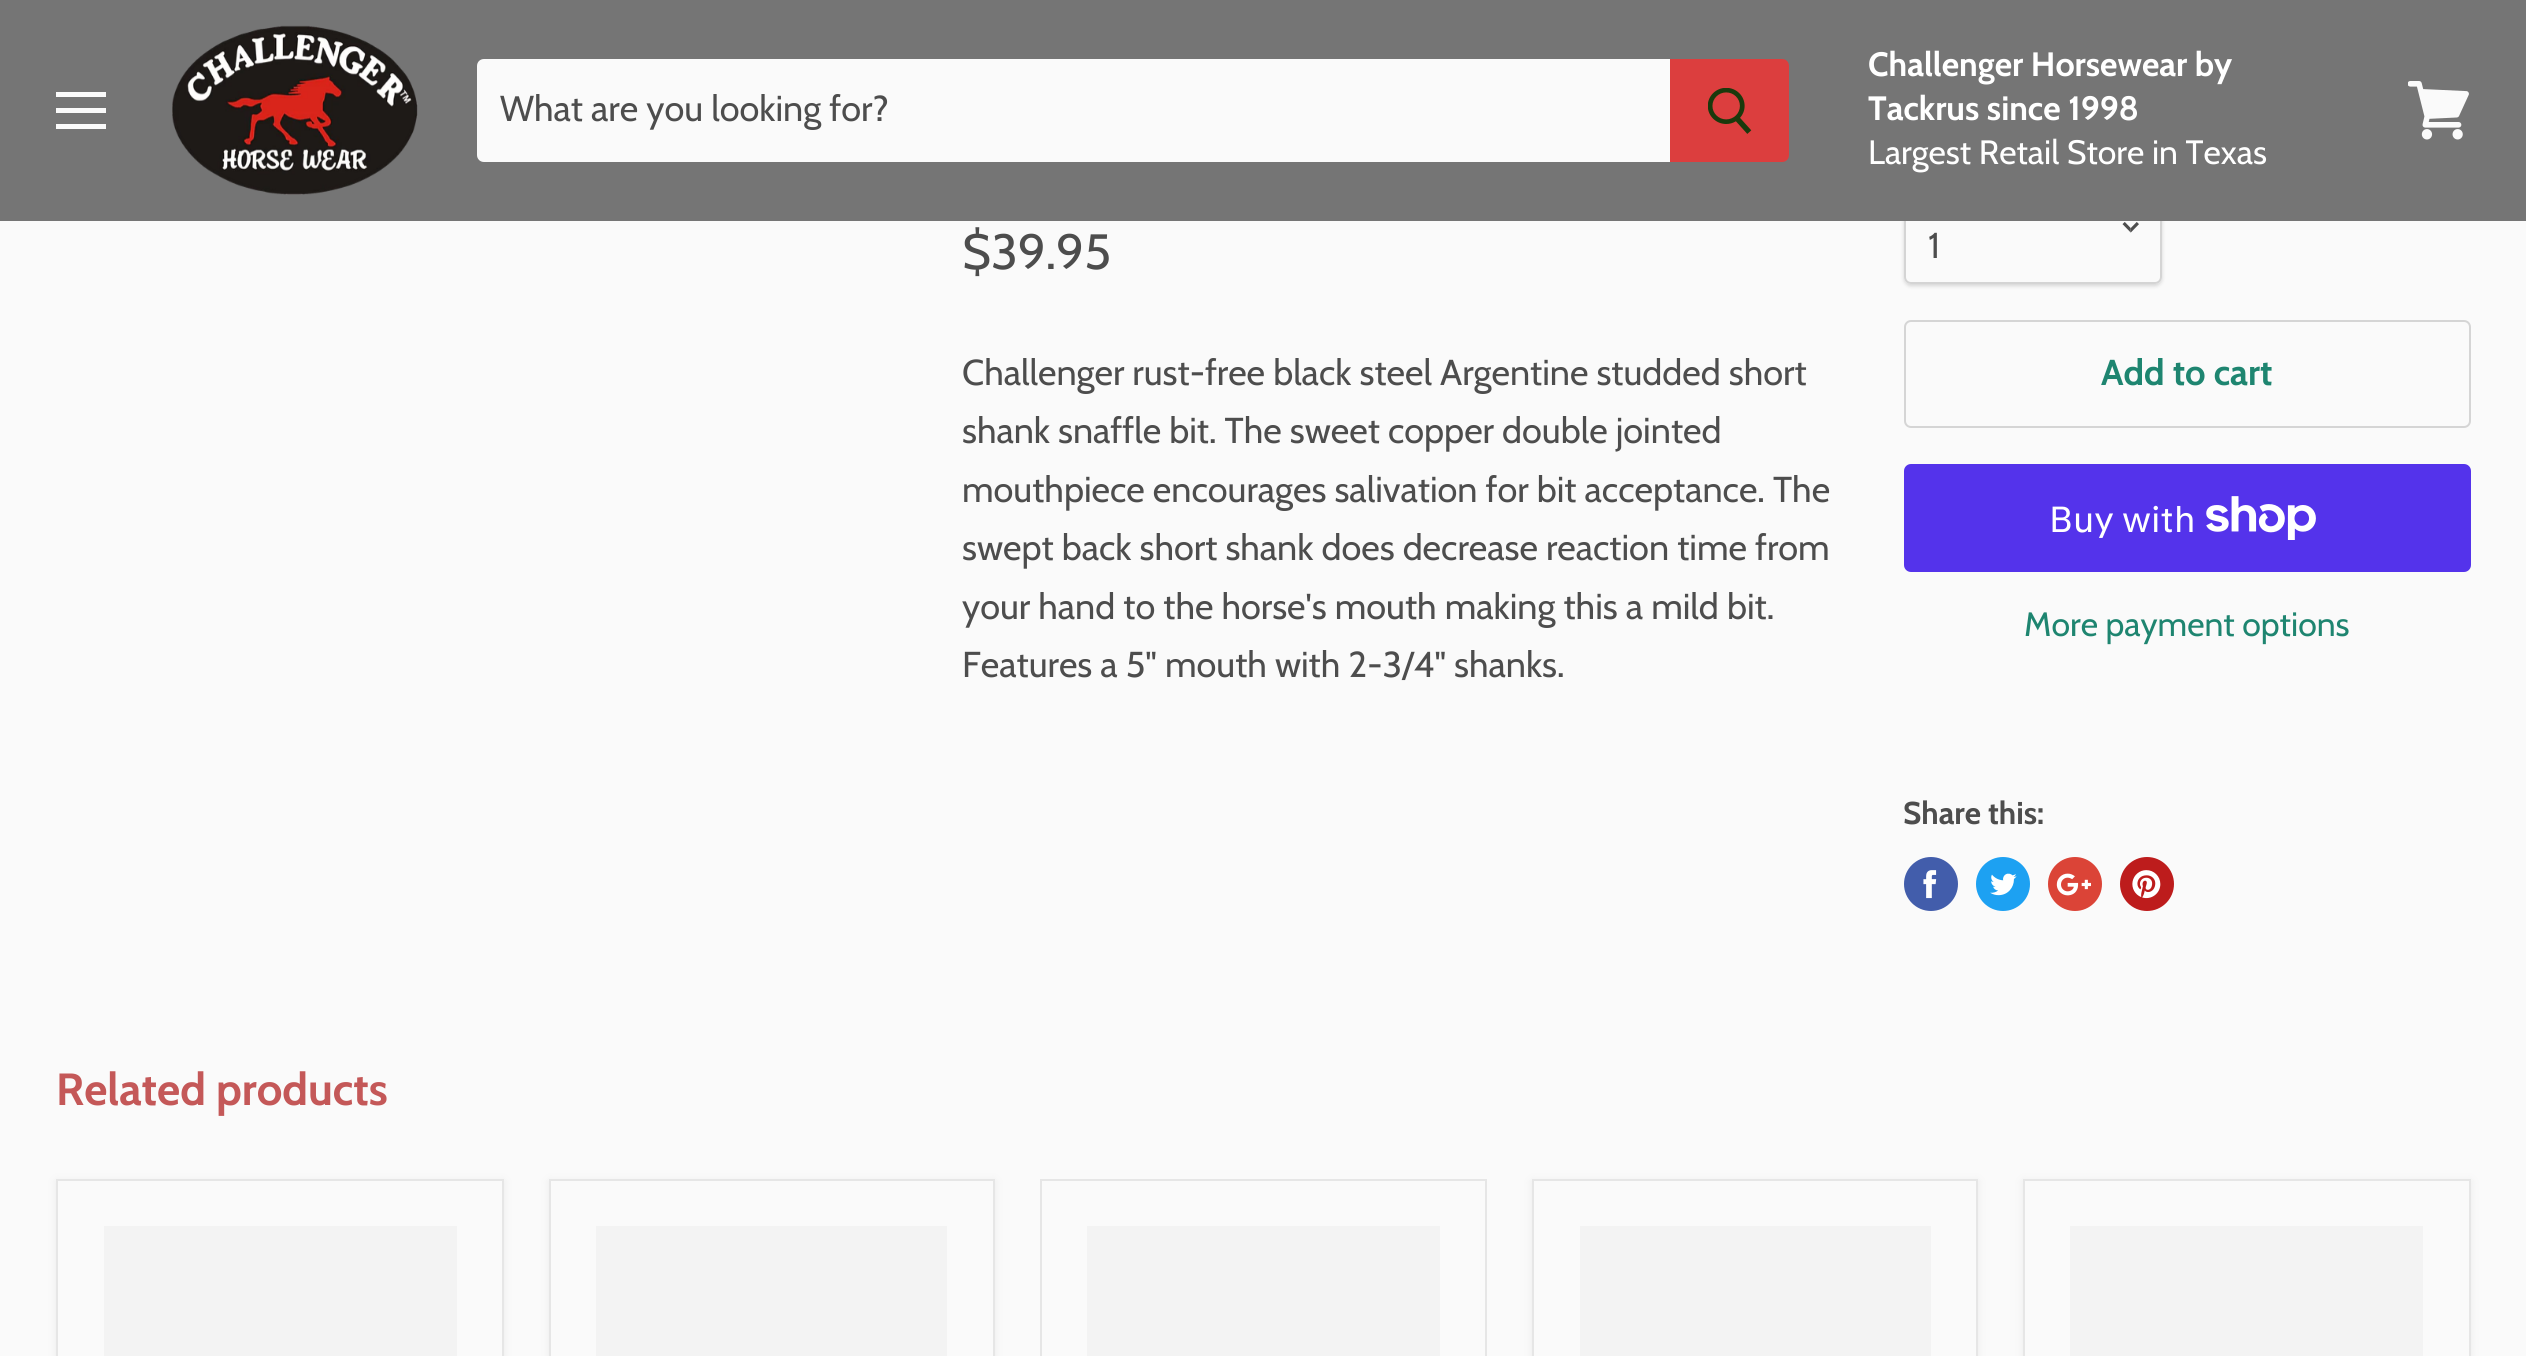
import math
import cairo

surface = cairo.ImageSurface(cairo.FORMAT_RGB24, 2526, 1356)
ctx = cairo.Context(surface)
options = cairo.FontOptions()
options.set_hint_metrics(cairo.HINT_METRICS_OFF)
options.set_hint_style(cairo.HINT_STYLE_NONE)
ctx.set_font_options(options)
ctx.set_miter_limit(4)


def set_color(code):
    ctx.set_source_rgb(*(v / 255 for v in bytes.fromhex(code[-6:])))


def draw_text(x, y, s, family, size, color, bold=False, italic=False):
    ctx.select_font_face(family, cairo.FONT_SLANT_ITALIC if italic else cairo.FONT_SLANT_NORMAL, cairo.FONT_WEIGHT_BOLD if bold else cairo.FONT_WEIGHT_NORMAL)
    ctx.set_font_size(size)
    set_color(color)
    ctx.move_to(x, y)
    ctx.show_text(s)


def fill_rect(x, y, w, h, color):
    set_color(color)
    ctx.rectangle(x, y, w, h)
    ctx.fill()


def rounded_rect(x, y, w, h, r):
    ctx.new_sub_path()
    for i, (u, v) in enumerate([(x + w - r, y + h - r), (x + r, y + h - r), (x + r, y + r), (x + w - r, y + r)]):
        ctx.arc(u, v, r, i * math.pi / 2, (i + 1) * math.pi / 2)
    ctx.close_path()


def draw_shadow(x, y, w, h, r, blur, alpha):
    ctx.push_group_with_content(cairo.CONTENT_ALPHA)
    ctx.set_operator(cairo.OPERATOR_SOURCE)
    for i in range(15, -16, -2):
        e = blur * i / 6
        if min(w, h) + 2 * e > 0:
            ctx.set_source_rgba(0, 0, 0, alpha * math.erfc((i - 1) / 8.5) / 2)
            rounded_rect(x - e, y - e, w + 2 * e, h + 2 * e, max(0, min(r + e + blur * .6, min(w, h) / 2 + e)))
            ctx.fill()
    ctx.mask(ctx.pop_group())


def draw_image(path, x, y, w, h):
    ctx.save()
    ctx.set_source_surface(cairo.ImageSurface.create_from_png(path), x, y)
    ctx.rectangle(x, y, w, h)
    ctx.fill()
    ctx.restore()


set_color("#fafafa")
ctx.paint()
ctx.save()
ctx.set_fill_rule(cairo.FILL_RULE_EVEN_ODD)
ctx.new_path()
ctx.move_to(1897, 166)
ctx.line_to(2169, 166)
ctx.line_to(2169, 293)
ctx.line_to(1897, 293)
ctx.close_path()
ctx.move_to(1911, 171)
ctx.line_to(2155, 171)
ctx.curve_to(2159, 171, 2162, 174, 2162, 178)
ctx.line_to(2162, 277)
ctx.curve_to(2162, 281, 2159, 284, 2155, 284)
ctx.line_to(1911, 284)
ctx.curve_to(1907, 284, 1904, 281, 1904, 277)
ctx.line_to(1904, 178)
ctx.curve_to(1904, 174, 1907, 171, 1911, 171)
ctx.close_path()
ctx.clip()
set_color("#000000")
draw_shadow(1904, 173, 258, 113, 7, 2, 0.15)
ctx.restore()
rounded_rect(1905, 172, 256, 111, 6)
ctx.set_source_rgba(0.49, 0.49, 0.49, 0.3)
ctx.stroke()
fill_rect(0, 0, 2526, 221, "#757575")
fill_rect(56, 92, 50, 5, "#fafafa")
fill_rect(56, 108, 50, 5, "#fafafa")
fill_rect(56, 124, 50, 5, "#fafafa")
draw_image("assets/img1.png", 172, 25, 246, 170)
ctx.new_path()
ctx.move_to(484, 59)
ctx.line_to(1670, 59)
ctx.line_to(1670, 162)
ctx.line_to(484, 162)
ctx.curve_to(480, 162, 477, 159, 477, 155)
ctx.line_to(477, 66)
ctx.curve_to(477, 62, 480, 59, 484, 59)
ctx.close_path()
ctx.fill()
draw_text(500, 121, "What are you looking for?", "Cabin", 36, "#4d4d4d")
set_color("#dc3e3e")
ctx.new_path()
ctx.move_to(1671, 60)
ctx.line_to(1782, 60)
ctx.curve_to(1785.5, 60, 1788, 62.5, 1788, 66)
ctx.line_to(1788, 155)
ctx.curve_to(1788, 158.5, 1785.5, 161, 1782, 161)
ctx.line_to(1671, 161)
ctx.close_path()
ctx.fill_preserve()
ctx.stroke()
draw_image("assets/img2.png", 1708, 88, 44, 46)
draw_text(1868, 76, "Challenger Horsewear by", "Cabin", 33.75, "#ffffff", bold=True)
draw_text(1868, 120, "Tackrus since 1998", "Cabin", 33.75, "#ffffff", bold=True)
draw_text(1868, 164, "Largest Retail Store in Texas", "Cabin", 33.75, "#ffffff")
draw_image("assets/img3.png", 2408, 81, 61, 59)
draw_text(962, 269, "$39.95", "Cabin", 49.5, "#4d4d4d")
draw_text(962, 385, "Challenger rust-free black steel Argentine studded short", "Cabin", 36, "#4d4d4d")
draw_text(962, 443, "shank snaffle bit. The sweet copper double jointed", "Cabin", 36, "#4d4d4d")
draw_text(962, 502, "mouthpiece encourages salivation for bit acceptance. The", "Cabin", 36, "#4d4d4d")
draw_text(962, 560, "swept back short shank does decrease reaction time from", "Cabin", 36, "#4d4d4d")
draw_text(962, 619, "your hand to the horse's mouth making this a mild bit.", "Cabin", 36, "#4d4d4d")
draw_text(962, 677, "Features a 5\" mouth with 2-3/4\" shanks.", "Cabin", 36, "#4d4d4d")
draw_image("assets/img4.png", 2122, 222, 17, 11)
draw_text(1928, 258, "1", "Cabin", 36, "#4d4d4d")
rounded_rect(1905, 321, 565, 106, 6)
set_color("#d5d5d5")
ctx.stroke()
draw_text(2101, 385, "Add to cart", "Cabin", 36, "#1e8570", bold=True)
set_color("#5433eb")
rounded_rect(1904, 464, 567, 108, 7)
ctx.fill()
draw_text(2049, 532, "Buy with", "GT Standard", 36, "#ffffff")
draw_image("assets/img5.png", 2206, 496, 110, 44)
draw_text(2024, 636, "More payment options", "Cabin", 33.75, "#1e8570")
draw_text(1903, 824, "Share this:", "Cabin", 31.5, "#4d4d4d", bold=True)
set_color("#425dab")
ctx.new_path()
ctx.arc(1931, 884, 27, 0, 2 * math.pi)
ctx.fill()
draw_image("assets/img6.png", 1923, 870, 14, 29)
set_color("#1da1f2")
ctx.arc(2003, 884, 27, 0, 2 * math.pi)
ctx.fill()
draw_image("assets/img7.png", 1990, 873, 27, 23)
set_color("#db4437")
ctx.arc(2075, 884, 27, 0, 2 * math.pi)
ctx.fill()
draw_image("assets/img8.png", 2056, 873, 35, 23)
set_color("#bd1c1c")
ctx.arc(2147, 884, 27, 0, 2 * math.pi)
ctx.fill()
draw_image("assets/img9.png", 2132, 870, 29, 29)
draw_text(56, 1105, "Related products", "Cabin", 45, "#c45858", bold=True)
set_color("#7d7d7d")
draw_shadow(56, 1181, 448, 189, 0, 4.5, 0.11)
set_color("#fafafa")
ctx.rectangle(57, 1180, 446, 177)
ctx.fill_preserve()
set_color("#e6e6e6")
ctx.stroke()
fill_rect(104, 1226, 353, 130, "#f3f3f3")
set_color("#7d7d7d")
draw_shadow(549, 1181, 446, 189, 0, 4.5, 0.11)
set_color("#fafafa")
ctx.rectangle(550, 1180, 444, 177)
ctx.fill_preserve()
set_color("#e6e6e6")
ctx.stroke()
fill_rect(596, 1226, 351, 130, "#f3f3f3")
ctx.rectangle(1041, 1180, 445, 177)
set_color("#e6e6e6")
ctx.stroke()
fill_rect(1087, 1226, 353, 130, "#f3f3f3")
set_color("#7d7d7d")
draw_shadow(1532, 1181, 446, 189, 0, 4.5, 0.11)
set_color("#fafafa")
ctx.rectangle(1533, 1180, 444, 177)
ctx.fill_preserve()
set_color("#e6e6e6")
ctx.stroke()
fill_rect(1580, 1226, 351, 130, "#f3f3f3")
set_color("#7d7d7d")
draw_shadow(2023, 1181, 448, 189, 0, 4.5, 0.11)
set_color("#fafafa")
ctx.rectangle(2024, 1180, 446, 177)
ctx.fill_preserve()
set_color("#e6e6e6")
ctx.stroke()
fill_rect(2070, 1226, 353, 130, "#f3f3f3")
surface.write_to_png("output.png")
